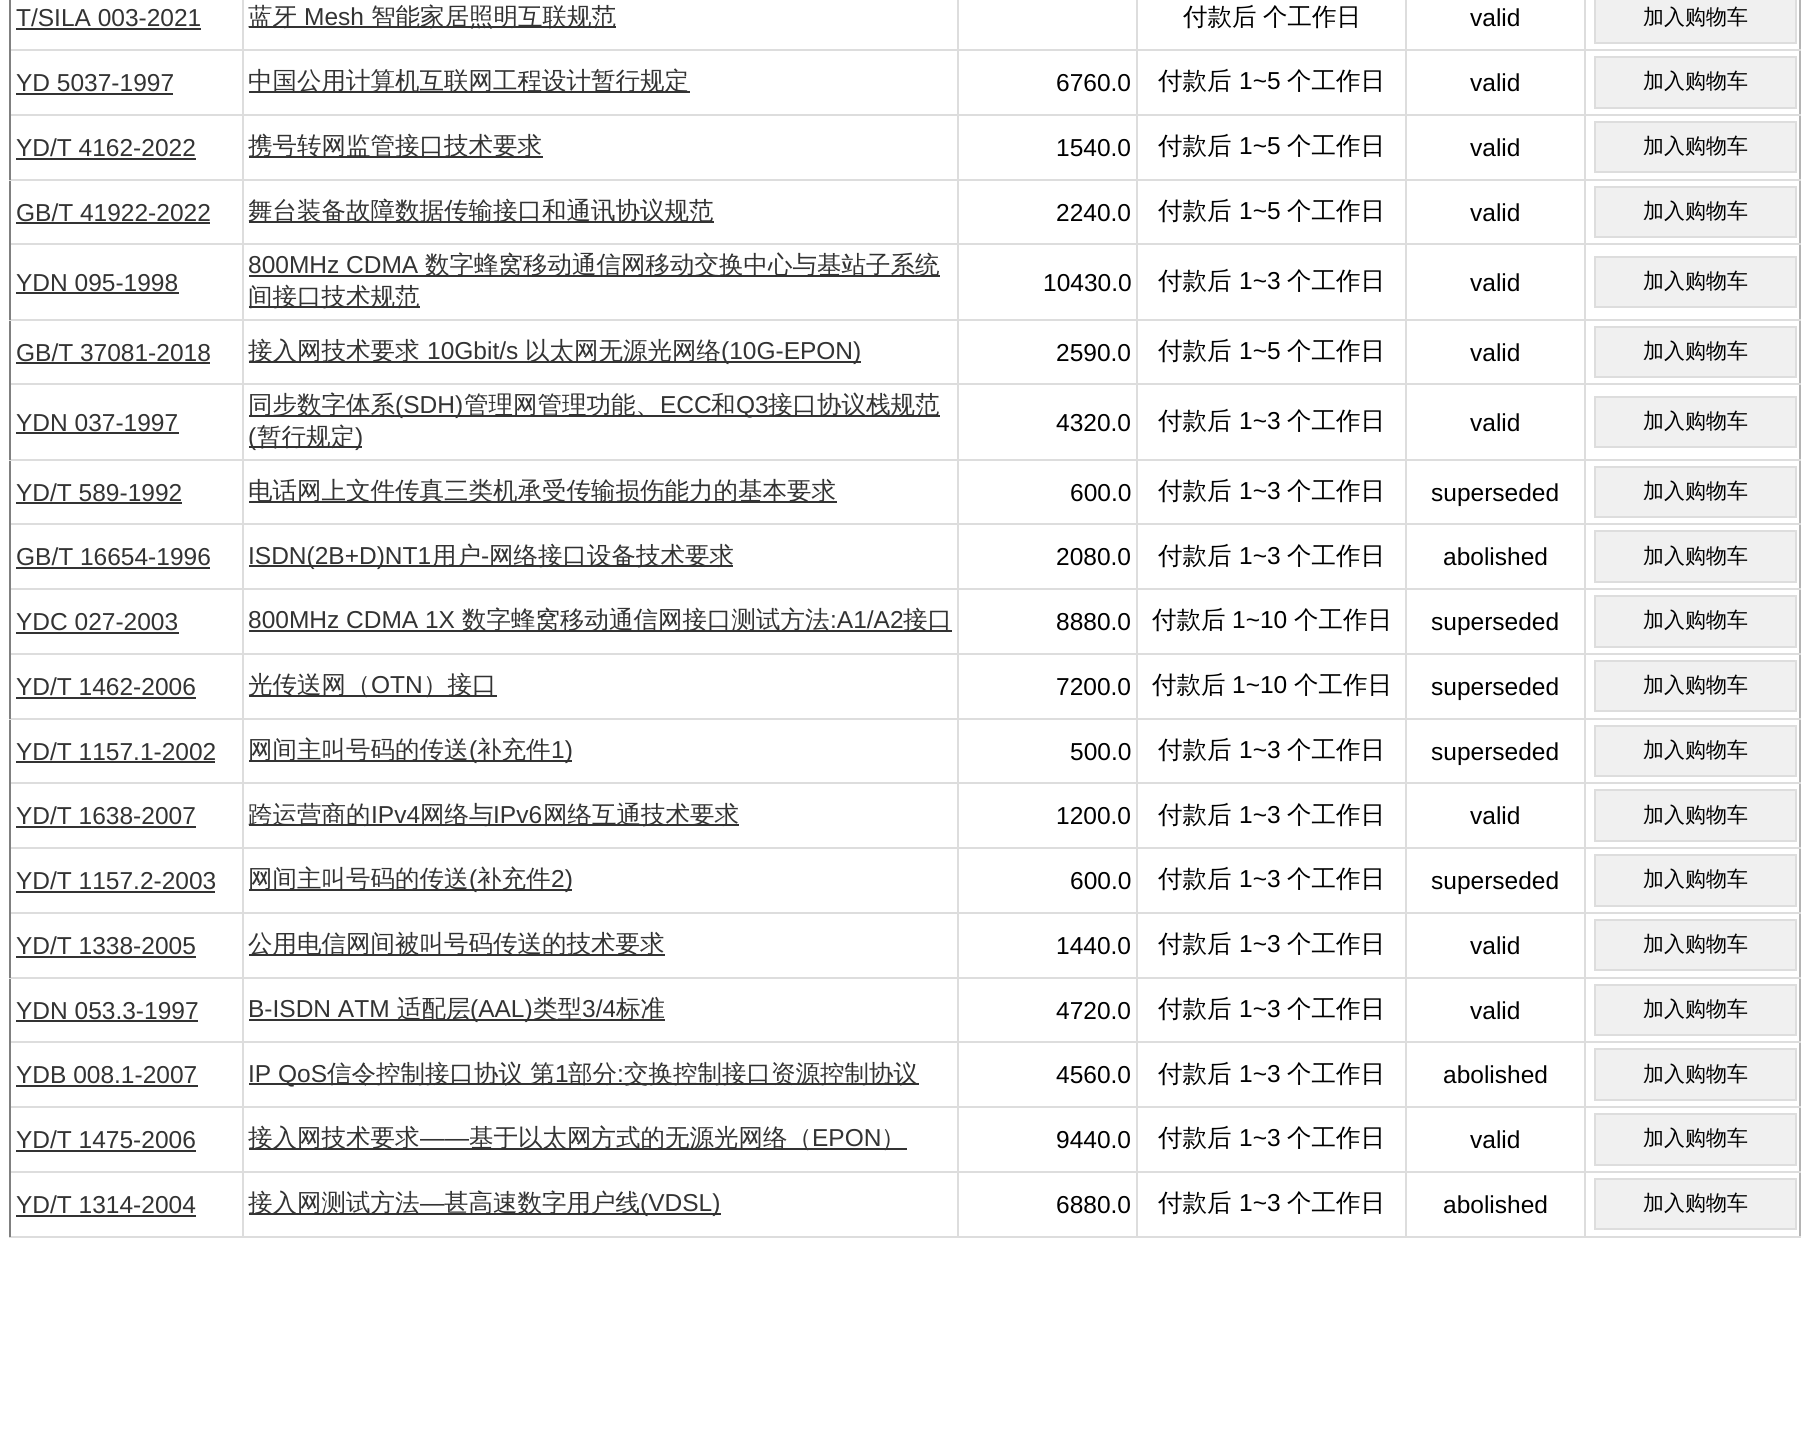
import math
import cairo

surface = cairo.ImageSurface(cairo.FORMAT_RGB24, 1808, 1442)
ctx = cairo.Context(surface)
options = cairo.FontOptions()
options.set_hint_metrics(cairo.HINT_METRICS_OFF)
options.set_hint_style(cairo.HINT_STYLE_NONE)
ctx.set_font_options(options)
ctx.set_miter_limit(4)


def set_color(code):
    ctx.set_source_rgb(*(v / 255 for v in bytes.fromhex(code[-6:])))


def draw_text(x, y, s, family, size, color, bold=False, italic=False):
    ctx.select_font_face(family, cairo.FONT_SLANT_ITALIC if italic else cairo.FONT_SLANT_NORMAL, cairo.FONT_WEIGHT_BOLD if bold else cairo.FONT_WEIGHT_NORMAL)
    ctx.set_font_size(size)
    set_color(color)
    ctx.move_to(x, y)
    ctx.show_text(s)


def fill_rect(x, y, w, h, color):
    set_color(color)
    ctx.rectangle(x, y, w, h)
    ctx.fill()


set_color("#ffffff")
ctx.paint()
fill_rect(1799, 114, 2, 1123, "#b4b4b4")
fill_rect(1799, 0, 2, 116, "#b4b4b4")
fill_rect(1584, 1236, 217, 2, "#dddddd")
fill_rect(1584, 1171, 2, 66, "#dddddd")
fill_rect(1584, 1171, 217, 2, "#dddddd")
fill_rect(1584, 1106, 2, 67, "#dddddd")
fill_rect(1584, 1106, 217, 2, "#dddddd")
fill_rect(1584, 1041, 2, 67, "#dddddd")
fill_rect(1584, 1041, 217, 2, "#dddddd")
fill_rect(1584, 977, 2, 66, "#dddddd")
fill_rect(1584, 977, 217, 2, "#dddddd")
fill_rect(1584, 912, 2, 66, "#dddddd")
fill_rect(1584, 912, 217, 2, "#dddddd")
fill_rect(1584, 847, 2, 67, "#dddddd")
fill_rect(1584, 847, 217, 2, "#dddddd")
fill_rect(1584, 782, 2, 67, "#dddddd")
fill_rect(1584, 782, 217, 2, "#dddddd")
fill_rect(1584, 718, 2, 66, "#dddddd")
fill_rect(1584, 718, 217, 2, "#dddddd")
fill_rect(1584, 653, 2, 66, "#dddddd")
fill_rect(1584, 653, 217, 2, "#dddddd")
fill_rect(1584, 588, 2, 67, "#dddddd")
fill_rect(1584, 588, 217, 2, "#dddddd")
fill_rect(1584, 523, 2, 67, "#dddddd")
fill_rect(1584, 523, 217, 2, "#dddddd")
fill_rect(1584, 459, 2, 66, "#dddddd")
fill_rect(1584, 459, 217, 2, "#dddddd")
fill_rect(1584, 383, 2, 77, "#dddddd")
fill_rect(1584, 383, 217, 2, "#dddddd")
fill_rect(1584, 319, 2, 66, "#dddddd")
fill_rect(1584, 319, 217, 2, "#dddddd")
fill_rect(1584, 243, 2, 77, "#dddddd")
fill_rect(1584, 243, 217, 2, "#dddddd")
fill_rect(1584, 179, 2, 66, "#dddddd")
fill_rect(1584, 179, 217, 2, "#dddddd")
fill_rect(1584, 114, 2, 66, "#dddddd")
fill_rect(1584, 114, 217, 2, "#dddddd")
fill_rect(1584, 49, 2, 67, "#dddddd")
fill_rect(1584, 49, 217, 2, "#dddddd")
fill_rect(1584, 0, 2, 51, "#dddddd")
fill_rect(1405, 1236, 181, 2, "#dddddd")
fill_rect(1405, 1171, 2, 66, "#dddddd")
fill_rect(1405, 1171, 181, 2, "#dddddd")
fill_rect(1405, 1106, 2, 67, "#dddddd")
fill_rect(1405, 1106, 181, 2, "#dddddd")
fill_rect(1405, 1041, 2, 67, "#dddddd")
fill_rect(1405, 1041, 181, 2, "#dddddd")
fill_rect(1405, 977, 2, 66, "#dddddd")
fill_rect(1405, 977, 181, 2, "#dddddd")
fill_rect(1405, 912, 2, 66, "#dddddd")
fill_rect(1405, 912, 181, 2, "#dddddd")
fill_rect(1405, 847, 2, 67, "#dddddd")
fill_rect(1405, 847, 181, 2, "#dddddd")
fill_rect(1405, 782, 2, 67, "#dddddd")
fill_rect(1405, 782, 181, 2, "#dddddd")
fill_rect(1405, 718, 2, 66, "#dddddd")
fill_rect(1405, 718, 181, 2, "#dddddd")
fill_rect(1405, 653, 2, 66, "#dddddd")
fill_rect(1405, 653, 181, 2, "#dddddd")
fill_rect(1405, 588, 2, 67, "#dddddd")
fill_rect(1405, 588, 181, 2, "#dddddd")
fill_rect(1405, 523, 2, 67, "#dddddd")
fill_rect(1405, 523, 181, 2, "#dddddd")
fill_rect(1405, 459, 2, 66, "#dddddd")
fill_rect(1405, 459, 181, 2, "#dddddd")
fill_rect(1405, 383, 2, 77, "#dddddd")
fill_rect(1405, 383, 181, 2, "#dddddd")
fill_rect(1405, 319, 2, 66, "#dddddd")
fill_rect(1405, 319, 181, 2, "#dddddd")
fill_rect(1405, 243, 2, 77, "#dddddd")
fill_rect(1405, 243, 181, 2, "#dddddd")
fill_rect(1405, 179, 2, 66, "#dddddd")
fill_rect(1405, 179, 181, 2, "#dddddd")
fill_rect(1405, 114, 2, 66, "#dddddd")
fill_rect(1405, 114, 181, 2, "#dddddd")
fill_rect(1405, 49, 2, 67, "#dddddd")
fill_rect(1405, 49, 181, 2, "#dddddd")
fill_rect(1405, 0, 2, 51, "#dddddd")
fill_rect(1136, 1236, 271, 2, "#dddddd")
fill_rect(1136, 1171, 2, 66, "#dddddd")
fill_rect(1136, 1171, 271, 2, "#dddddd")
fill_rect(1136, 1106, 2, 67, "#dddddd")
fill_rect(1136, 1106, 271, 2, "#dddddd")
fill_rect(1136, 1041, 2, 67, "#dddddd")
fill_rect(1136, 1041, 271, 2, "#dddddd")
fill_rect(1136, 977, 2, 66, "#dddddd")
fill_rect(1136, 977, 271, 2, "#dddddd")
fill_rect(1136, 912, 2, 66, "#dddddd")
fill_rect(1136, 912, 271, 2, "#dddddd")
fill_rect(1136, 847, 2, 67, "#dddddd")
fill_rect(1136, 847, 271, 2, "#dddddd")
fill_rect(1136, 782, 2, 67, "#dddddd")
fill_rect(1136, 782, 271, 2, "#dddddd")
fill_rect(1136, 718, 2, 66, "#dddddd")
fill_rect(1136, 718, 271, 2, "#dddddd")
fill_rect(1136, 653, 2, 66, "#dddddd")
fill_rect(1136, 653, 271, 2, "#dddddd")
fill_rect(1136, 588, 2, 67, "#dddddd")
fill_rect(1136, 588, 271, 2, "#dddddd")
fill_rect(1136, 523, 2, 67, "#dddddd")
fill_rect(1136, 523, 271, 2, "#dddddd")
fill_rect(1136, 459, 2, 66, "#dddddd")
fill_rect(1136, 459, 271, 2, "#dddddd")
fill_rect(1136, 383, 2, 77, "#dddddd")
fill_rect(1136, 383, 271, 2, "#dddddd")
fill_rect(1136, 319, 2, 66, "#dddddd")
fill_rect(1136, 319, 271, 2, "#dddddd")
fill_rect(1136, 243, 2, 77, "#dddddd")
fill_rect(1136, 243, 271, 2, "#dddddd")
fill_rect(1136, 179, 2, 66, "#dddddd")
fill_rect(1136, 179, 271, 2, "#dddddd")
fill_rect(1136, 114, 2, 66, "#dddddd")
fill_rect(1136, 114, 271, 2, "#dddddd")
fill_rect(1136, 49, 2, 67, "#dddddd")
fill_rect(1136, 49, 271, 2, "#dddddd")
fill_rect(1136, 0, 2, 51, "#dddddd")
fill_rect(957, 1236, 181, 2, "#dddddd")
fill_rect(957, 1171, 2, 66, "#dddddd")
fill_rect(957, 1171, 181, 2, "#dddddd")
fill_rect(957, 1106, 2, 67, "#dddddd")
fill_rect(957, 1106, 181, 2, "#dddddd")
fill_rect(957, 1041, 2, 67, "#dddddd")
fill_rect(957, 1041, 181, 2, "#dddddd")
fill_rect(957, 977, 2, 66, "#dddddd")
fill_rect(957, 977, 181, 2, "#dddddd")
fill_rect(957, 912, 2, 66, "#dddddd")
fill_rect(957, 912, 181, 2, "#dddddd")
fill_rect(957, 847, 2, 67, "#dddddd")
fill_rect(957, 847, 181, 2, "#dddddd")
fill_rect(957, 782, 2, 67, "#dddddd")
fill_rect(957, 782, 181, 2, "#dddddd")
fill_rect(957, 718, 2, 66, "#dddddd")
fill_rect(957, 718, 181, 2, "#dddddd")
fill_rect(957, 653, 2, 66, "#dddddd")
fill_rect(957, 653, 181, 2, "#dddddd")
fill_rect(957, 588, 2, 67, "#dddddd")
fill_rect(957, 588, 181, 2, "#dddddd")
fill_rect(957, 523, 2, 67, "#dddddd")
fill_rect(957, 523, 181, 2, "#dddddd")
fill_rect(957, 459, 2, 66, "#dddddd")
fill_rect(957, 459, 181, 2, "#dddddd")
fill_rect(957, 383, 2, 77, "#dddddd")
fill_rect(957, 383, 181, 2, "#dddddd")
fill_rect(957, 319, 2, 66, "#dddddd")
fill_rect(957, 319, 181, 2, "#dddddd")
fill_rect(957, 243, 2, 77, "#dddddd")
fill_rect(957, 243, 181, 2, "#dddddd")
fill_rect(957, 179, 2, 66, "#dddddd")
fill_rect(957, 179, 181, 2, "#dddddd")
fill_rect(957, 114, 2, 66, "#dddddd")
fill_rect(957, 114, 181, 2, "#dddddd")
fill_rect(957, 49, 2, 67, "#dddddd")
fill_rect(957, 49, 181, 2, "#dddddd")
fill_rect(957, 0, 2, 51, "#dddddd")
fill_rect(242, 1236, 717, 2, "#dddddd")
fill_rect(242, 1171, 2, 66, "#dddddd")
fill_rect(242, 1171, 717, 2, "#dddddd")
fill_rect(242, 1106, 2, 67, "#dddddd")
fill_rect(242, 1106, 717, 2, "#dddddd")
fill_rect(242, 1041, 2, 67, "#dddddd")
fill_rect(242, 1041, 717, 2, "#dddddd")
fill_rect(242, 977, 2, 66, "#dddddd")
fill_rect(242, 977, 717, 2, "#dddddd")
fill_rect(242, 912, 2, 66, "#dddddd")
fill_rect(242, 912, 717, 2, "#dddddd")
fill_rect(242, 847, 2, 67, "#dddddd")
fill_rect(242, 847, 717, 2, "#dddddd")
fill_rect(242, 782, 2, 67, "#dddddd")
fill_rect(242, 782, 717, 2, "#dddddd")
fill_rect(242, 718, 2, 66, "#dddddd")
fill_rect(242, 718, 717, 2, "#dddddd")
fill_rect(242, 653, 2, 66, "#dddddd")
fill_rect(242, 653, 717, 2, "#dddddd")
fill_rect(242, 588, 2, 67, "#dddddd")
fill_rect(242, 588, 717, 2, "#dddddd")
fill_rect(242, 523, 2, 67, "#dddddd")
fill_rect(242, 523, 717, 2, "#dddddd")
fill_rect(242, 459, 2, 66, "#dddddd")
fill_rect(242, 459, 717, 2, "#dddddd")
fill_rect(242, 383, 2, 77, "#dddddd")
fill_rect(242, 383, 717, 2, "#dddddd")
fill_rect(242, 319, 2, 66, "#dddddd")
fill_rect(242, 319, 717, 2, "#dddddd")
fill_rect(242, 243, 2, 77, "#dddddd")
fill_rect(242, 243, 717, 2, "#dddddd")
fill_rect(242, 179, 2, 66, "#dddddd")
fill_rect(242, 179, 717, 2, "#dddddd")
fill_rect(242, 114, 2, 66, "#dddddd")
fill_rect(242, 114, 717, 2, "#dddddd")
fill_rect(242, 49, 2, 67, "#dddddd")
fill_rect(242, 49, 717, 2, "#dddddd")
fill_rect(242, 0, 2, 51, "#dddddd")
fill_rect(9, 1236, 234, 2, "#dddddd")
fill_rect(9, 1171, 2, 66, "#808080")
fill_rect(9, 1171, 234, 2, "#dddddd")
fill_rect(9, 1106, 2, 67, "#808080")
fill_rect(9, 1106, 234, 2, "#dddddd")
fill_rect(9, 1041, 2, 67, "#808080")
fill_rect(9, 1041, 234, 2, "#dddddd")
fill_rect(9, 977, 2, 66, "#808080")
fill_rect(9, 977, 234, 2, "#dddddd")
fill_rect(9, 912, 2, 66, "#808080")
fill_rect(9, 912, 234, 2, "#dddddd")
fill_rect(9, 847, 2, 67, "#808080")
fill_rect(9, 847, 234, 2, "#dddddd")
fill_rect(9, 782, 2, 67, "#808080")
fill_rect(9, 782, 234, 2, "#dddddd")
fill_rect(9, 718, 2, 66, "#808080")
fill_rect(9, 718, 234, 2, "#dddddd")
fill_rect(9, 653, 2, 66, "#808080")
fill_rect(9, 653, 234, 2, "#dddddd")
fill_rect(9, 588, 2, 67, "#808080")
fill_rect(9, 588, 234, 2, "#dddddd")
fill_rect(9, 523, 2, 67, "#808080")
fill_rect(9, 523, 234, 2, "#dddddd")
fill_rect(9, 459, 2, 66, "#808080")
fill_rect(9, 459, 234, 2, "#dddddd")
fill_rect(9, 383, 2, 77, "#808080")
fill_rect(9, 383, 234, 2, "#dddddd")
fill_rect(9, 319, 2, 66, "#808080")
fill_rect(9, 319, 234, 2, "#dddddd")
fill_rect(9, 243, 2, 77, "#808080")
fill_rect(9, 243, 234, 2, "#dddddd")
fill_rect(9, 179, 2, 66, "#808080")
fill_rect(9, 179, 234, 2, "#dddddd")
fill_rect(9, 114, 2, 66, "#808080")
fill_rect(9, 114, 234, 2, "#dddddd")
fill_rect(9, 49, 2, 67, "#808080")
fill_rect(9, 49, 234, 2, "#dddddd")
fill_rect(9, 0, 2, 51, "#808080")
draw_text(16, 26, "T/SILA 003-2021", "Liberation Sans", 24.5, "#333333")
fill_rect(16, 28, 185, 2, "#333333")
fill_rect(249, 26, 367, 2, "#333333")
draw_text(248, 25, "蓝牙", "WenQuanYi Zen Hei Medium", 24.5, "#333333")
draw_text(304, 25, "Mesh", "Liberation Sans", 24.5, "#333333")
draw_text(371, 25, "智能家居照明互联规范", "WenQuanYi Zen Hei Medium", 24.5, "#333333")
draw_text(1183, 25, "付款后", "WenQuanYi Zen Hei Medium", 24.5, "#000000")
draw_text(1263, 25, "个工作日", "WenQuanYi Zen Hei Medium", 24.5, "#000000")
draw_text(1470, 26, "valid", "Liberation Sans", 24.5, "#000000")
set_color("#f0f0f0")
ctx.rectangle(1595, -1, 201, 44)
ctx.fill_preserve()
set_color("#dddddd")
ctx.stroke()
draw_text(1643, 24, "加入购物车", "WenQuanYi Zen Hei Medium", 21, "#000000")
draw_text(16, 91, "YD 5037-1997", "Liberation Sans", 24.5, "#333333")
fill_rect(16, 93, 157, 2, "#333333")
fill_rect(249, 91, 441, 2, "#333333")
draw_text(248, 89, "中国公用计算机互联网工程设计暂行规定", "WenQuanYi Zen Hei Medium", 24.5, "#333333")
draw_text(1056, 91, "6760.0", "Liberation Sans", 24.5, "#000000")
draw_text(1158, 89, "付款后", "WenQuanYi Zen Hei Medium", 24.5, "#000000")
draw_text(1239, 89, "1~5", "Liberation Sans", 24.5, "#000000")
draw_text(1287, 89, "个工作日", "WenQuanYi Zen Hei Medium", 24.5, "#000000")
draw_text(1470, 91, "valid", "Liberation Sans", 24.5, "#000000")
set_color("#f0f0f0")
ctx.rectangle(1595, 57, 201, 51)
ctx.fill_preserve()
set_color("#dddddd")
ctx.stroke()
draw_text(1643, 88, "加入购物车", "WenQuanYi Zen Hei Medium", 21, "#000000")
draw_text(16, 156, "YD/T 4162-2022", "Liberation Sans", 24.5, "#333333")
fill_rect(16, 158, 180, 2, "#333333")
fill_rect(249, 156, 294, 2, "#333333")
draw_text(248, 154, "携号转网监管接口技术要求", "WenQuanYi Zen Hei Medium", 24.5, "#333333")
draw_text(1056, 156, "1540.0", "Liberation Sans", 24.5, "#000000")
draw_text(1158, 154, "付款后", "WenQuanYi Zen Hei Medium", 24.5, "#000000")
draw_text(1239, 154, "1~5", "Liberation Sans", 24.5, "#000000")
draw_text(1287, 154, "个工作日", "WenQuanYi Zen Hei Medium", 24.5, "#000000")
draw_text(1470, 156, "valid", "Liberation Sans", 24.5, "#000000")
set_color("#f0f0f0")
ctx.rectangle(1595, 122, 201, 50)
ctx.fill_preserve()
set_color("#dddddd")
ctx.stroke()
draw_text(1643, 153, "加入购物车", "WenQuanYi Zen Hei Medium", 21, "#000000")
draw_text(16, 221, "GB/T 41922-2022", "Liberation Sans", 24.5, "#333333")
fill_rect(16, 222, 194, 2, "#333333")
fill_rect(249, 221, 465, 2, "#333333")
draw_text(248, 219, "舞台装备故障数据传输接口和通讯协议规范", "WenQuanYi Zen Hei Medium", 24.5, "#333333")
draw_text(1056, 221, "2240.0", "Liberation Sans", 24.5, "#000000")
draw_text(1158, 219, "付款后", "WenQuanYi Zen Hei Medium", 24.5, "#000000")
draw_text(1239, 219, "1~5", "Liberation Sans", 24.5, "#000000")
draw_text(1287, 219, "个工作日", "WenQuanYi Zen Hei Medium", 24.5, "#000000")
draw_text(1470, 221, "valid", "Liberation Sans", 24.5, "#000000")
set_color("#f0f0f0")
ctx.rectangle(1595, 187, 201, 50)
ctx.fill_preserve()
set_color("#dddddd")
ctx.stroke()
draw_text(1643, 218, "加入购物车", "WenQuanYi Zen Hei Medium", 21, "#000000")
draw_text(16, 291, "YDN 095-1998", "Liberation Sans", 24.5, "#333333")
fill_rect(16, 292, 163, 2, "#333333")
draw_text(248, 273, "800MHz CDMA", "Liberation Sans", 24.5, "#333333")
fill_rect(249, 275, 691, 2, "#333333")
draw_text(425, 273, "数字蜂窝移动通信网移动交换中心与基站子系统", "WenQuanYi Zen Hei Medium", 24.5, "#333333")
fill_rect(249, 306, 171, 2, "#333333")
draw_text(248, 305, "间接口技术规范", "WenQuanYi Zen Hei Medium", 24.5, "#333333")
draw_text(1043, 291, "10430.0", "Liberation Sans", 24.5, "#000000")
draw_text(1158, 289, "付款后", "WenQuanYi Zen Hei Medium", 24.5, "#000000")
draw_text(1239, 289, "1~3", "Liberation Sans", 24.5, "#000000")
draw_text(1287, 289, "个工作日", "WenQuanYi Zen Hei Medium", 24.5, "#000000")
draw_text(1470, 291, "valid", "Liberation Sans", 24.5, "#000000")
set_color("#f0f0f0")
ctx.rectangle(1595, 257, 201, 50)
ctx.fill_preserve()
set_color("#dddddd")
ctx.stroke()
draw_text(1643, 288, "加入购物车", "WenQuanYi Zen Hei Medium", 21, "#000000")
draw_text(16, 361, "GB/T 37081-2018", "Liberation Sans", 24.5, "#333333")
fill_rect(16, 362, 194, 2, "#333333")
fill_rect(249, 361, 612, 2, "#333333")
draw_text(248, 359, "接入网技术要求", "WenQuanYi Zen Hei Medium", 24.5, "#333333")
draw_text(427, 359, "10Gbit/s", "Liberation Sans", 24.5, "#333333")
draw_text(525, 359, "以太网无源光网络", "WenQuanYi Zen Hei Medium", 24.5, "#333333")
draw_text(721, 359, "(10G-EPON)", "Liberation Sans", 24.5, "#333333")
draw_text(1056, 361, "2590.0", "Liberation Sans", 24.5, "#000000")
draw_text(1158, 359, "付款后", "WenQuanYi Zen Hei Medium", 24.5, "#000000")
draw_text(1239, 359, "1~5", "Liberation Sans", 24.5, "#000000")
draw_text(1287, 359, "个工作日", "WenQuanYi Zen Hei Medium", 24.5, "#000000")
draw_text(1470, 361, "valid", "Liberation Sans", 24.5, "#000000")
set_color("#f0f0f0")
ctx.rectangle(1595, 327, 201, 50)
ctx.fill_preserve()
set_color("#dddddd")
ctx.stroke()
draw_text(1643, 358, "加入购物车", "WenQuanYi Zen Hei Medium", 21, "#000000")
draw_text(16, 431, "YDN 037-1997", "Liberation Sans", 24.5, "#333333")
fill_rect(16, 432, 163, 2, "#333333")
fill_rect(249, 415, 691, 2, "#333333")
draw_text(248, 413, "同步数字体系", "WenQuanYi Zen Hei Medium", 24.5, "#333333")
draw_text(395, 413, "(SDH)", "Liberation Sans", 24.5, "#333333")
draw_text(464, 413, "管理网管理功能、", "WenQuanYi Zen Hei Medium", 24.5, "#333333")
draw_text(660, 413, "ECC", "Liberation Sans", 24.5, "#333333")
draw_text(711, 413, "和", "WenQuanYi Zen Hei Medium", 24.5, "#333333")
draw_text(736, 413, "Q3", "Liberation Sans", 24.5, "#333333")
draw_text(768, 413, "接口协议栈规范", "WenQuanYi Zen Hei Medium", 24.5, "#333333")
fill_rect(249, 446, 113, 2, "#333333")
draw_text(248, 445, "(", "Liberation Sans", 24.5, "#333333")
draw_text(257, 445, "暂行规定", "WenQuanYi Zen Hei Medium", 24.5, "#333333")
draw_text(355, 445, ")", "Liberation Sans", 24.5, "#333333")
draw_text(1056, 431, "4320.0", "Liberation Sans", 24.5, "#000000")
draw_text(1158, 429, "付款后", "WenQuanYi Zen Hei Medium", 24.5, "#000000")
draw_text(1239, 429, "1~3", "Liberation Sans", 24.5, "#000000")
draw_text(1287, 429, "个工作日", "WenQuanYi Zen Hei Medium", 24.5, "#000000")
draw_text(1470, 431, "valid", "Liberation Sans", 24.5, "#000000")
set_color("#f0f0f0")
ctx.rectangle(1595, 397, 201, 50)
ctx.fill_preserve()
set_color("#dddddd")
ctx.stroke()
draw_text(1643, 428, "加入购物车", "WenQuanYi Zen Hei Medium", 21, "#000000")
draw_text(16, 501, "YD/T 589-1992", "Liberation Sans", 24.5, "#333333")
fill_rect(16, 502, 166, 2, "#333333")
fill_rect(249, 501, 588, 2, "#333333")
draw_text(248, 499, "电话网上文件传真三类机承受传输损伤能力的基本要求", "WenQuanYi Zen Hei Medium", 24.5, "#333333")
draw_text(1070, 501, "600.0", "Liberation Sans", 24.5, "#000000")
draw_text(1158, 499, "付款后", "WenQuanYi Zen Hei Medium", 24.5, "#000000")
draw_text(1239, 499, "1~3", "Liberation Sans", 24.5, "#000000")
draw_text(1287, 499, "个工作日", "WenQuanYi Zen Hei Medium", 24.5, "#000000")
draw_text(1431, 501, "superseded", "Liberation Sans", 24.5, "#000000")
set_color("#f0f0f0")
ctx.rectangle(1595, 467, 201, 50)
ctx.fill_preserve()
set_color("#dddddd")
ctx.stroke()
draw_text(1643, 498, "加入购物车", "WenQuanYi Zen Hei Medium", 21, "#000000")
draw_text(16, 565, "GB/T 16654-1996", "Liberation Sans", 24.5, "#333333")
fill_rect(16, 567, 194, 2, "#333333")
fill_rect(249, 565, 484, 2, "#333333")
draw_text(248, 564, "ISDN(2B+D)NT1", "Liberation Sans", 24.5, "#333333")
draw_text(432, 564, "用户", "WenQuanYi Zen Hei Medium", 24.5, "#333333")
draw_text(481, 564, "-", "Liberation Sans", 24.5, "#333333")
draw_text(489, 564, "网络接口设备技术要求", "WenQuanYi Zen Hei Medium", 24.5, "#333333")
draw_text(1056, 565, "2080.0", "Liberation Sans", 24.5, "#000000")
draw_text(1158, 564, "付款后", "WenQuanYi Zen Hei Medium", 24.5, "#000000")
draw_text(1239, 564, "1~3", "Liberation Sans", 24.5, "#000000")
draw_text(1287, 564, "个工作日", "WenQuanYi Zen Hei Medium", 24.5, "#000000")
draw_text(1443, 565, "abolished", "Liberation Sans", 24.5, "#000000")
set_color("#f0f0f0")
ctx.rectangle(1595, 531, 201, 51)
ctx.fill_preserve()
set_color("#dddddd")
ctx.stroke()
draw_text(1643, 563, "加入购物车", "WenQuanYi Zen Hei Medium", 21, "#000000")
draw_text(16, 630, "YDC 027-2003", "Liberation Sans", 24.5, "#333333")
fill_rect(16, 632, 163, 2, "#333333")
draw_text(248, 628, "800MHz CDMA 1X", "Liberation Sans", 24.5, "#333333")
fill_rect(249, 630, 703, 2, "#333333")
draw_text(462, 628, "数字蜂窝移动通信网接口测试方法", "WenQuanYi Zen Hei Medium", 24.5, "#333333")
draw_text(830, 628, ":A1/A2", "Liberation Sans", 24.5, "#333333")
draw_text(903, 628, "接口", "WenQuanYi Zen Hei Medium", 24.5, "#333333")
draw_text(1056, 630, "8880.0", "Liberation Sans", 24.5, "#000000")
draw_text(1152, 628, "付款后", "WenQuanYi Zen Hei Medium", 24.5, "#000000")
draw_text(1232, 628, "1~10", "Liberation Sans", 24.5, "#000000")
draw_text(1294, 628, "个工作日", "WenQuanYi Zen Hei Medium", 24.5, "#000000")
draw_text(1431, 630, "superseded", "Liberation Sans", 24.5, "#000000")
set_color("#f0f0f0")
ctx.rectangle(1595, 596, 201, 51)
ctx.fill_preserve()
set_color("#dddddd")
ctx.stroke()
draw_text(1643, 627, "加入购物车", "WenQuanYi Zen Hei Medium", 21, "#000000")
draw_text(16, 695, "YD/T 1462-2006", "Liberation Sans", 24.5, "#333333")
fill_rect(16, 697, 180, 2, "#333333")
fill_rect(249, 695, 248, 2, "#333333")
draw_text(248, 693, "光传送网（", "WenQuanYi Zen Hei Medium", 24.5, "#333333")
draw_text(371, 693, "OTN", "Liberation Sans", 24.5, "#333333")
draw_text(423, 693, "）接口", "WenQuanYi Zen Hei Medium", 24.5, "#333333")
draw_text(1056, 695, "7200.0", "Liberation Sans", 24.5, "#000000")
draw_text(1152, 693, "付款后", "WenQuanYi Zen Hei Medium", 24.5, "#000000")
draw_text(1232, 693, "1~10", "Liberation Sans", 24.5, "#000000")
draw_text(1294, 693, "个工作日", "WenQuanYi Zen Hei Medium", 24.5, "#000000")
draw_text(1431, 695, "superseded", "Liberation Sans", 24.5, "#000000")
set_color("#f0f0f0")
ctx.rectangle(1595, 661, 201, 50)
ctx.fill_preserve()
set_color("#dddddd")
ctx.stroke()
draw_text(1643, 692, "加入购物车", "WenQuanYi Zen Hei Medium", 21, "#000000")
draw_text(16, 760, "YD/T 1157.1-2002", "Liberation Sans", 24.5, "#333333")
fill_rect(16, 761, 199, 2, "#333333")
fill_rect(249, 760, 323, 2, "#333333")
draw_text(248, 758, "网间主叫号码的传送", "WenQuanYi Zen Hei Medium", 24.5, "#333333")
draw_text(469, 758, "(", "Liberation Sans", 24.5, "#333333")
draw_text(477, 758, "补充件", "WenQuanYi Zen Hei Medium", 24.5, "#333333")
draw_text(551, 758, "1)", "Liberation Sans", 24.5, "#333333")
draw_text(1070, 760, "500.0", "Liberation Sans", 24.5, "#000000")
draw_text(1158, 758, "付款后", "WenQuanYi Zen Hei Medium", 24.5, "#000000")
draw_text(1239, 758, "1~3", "Liberation Sans", 24.5, "#000000")
draw_text(1287, 758, "个工作日", "WenQuanYi Zen Hei Medium", 24.5, "#000000")
draw_text(1431, 760, "superseded", "Liberation Sans", 24.5, "#000000")
set_color("#f0f0f0")
ctx.rectangle(1595, 726, 201, 50)
ctx.fill_preserve()
set_color("#dddddd")
ctx.stroke()
draw_text(1643, 757, "加入购物车", "WenQuanYi Zen Hei Medium", 21, "#000000")
draw_text(16, 824, "YD/T 1638-2007", "Liberation Sans", 24.5, "#333333")
fill_rect(16, 826, 180, 2, "#333333")
fill_rect(249, 824, 490, 2, "#333333")
draw_text(248, 823, "跨运营商的", "WenQuanYi Zen Hei Medium", 24.5, "#333333")
draw_text(371, 823, "IPv4", "Liberation Sans", 24.5, "#333333")
draw_text(420, 823, "网络与", "WenQuanYi Zen Hei Medium", 24.5, "#333333")
draw_text(493, 823, "IPv6", "Liberation Sans", 24.5, "#333333")
draw_text(543, 823, "网络互通技术要求", "WenQuanYi Zen Hei Medium", 24.5, "#333333")
draw_text(1056, 824, "1200.0", "Liberation Sans", 24.5, "#000000")
draw_text(1158, 823, "付款后", "WenQuanYi Zen Hei Medium", 24.5, "#000000")
draw_text(1239, 823, "1~3", "Liberation Sans", 24.5, "#000000")
draw_text(1287, 823, "个工作日", "WenQuanYi Zen Hei Medium", 24.5, "#000000")
draw_text(1470, 824, "valid", "Liberation Sans", 24.5, "#000000")
set_color("#f0f0f0")
ctx.rectangle(1595, 790, 201, 51)
ctx.fill_preserve()
set_color("#dddddd")
ctx.stroke()
draw_text(1643, 822, "加入购物车", "WenQuanYi Zen Hei Medium", 21, "#000000")
draw_text(16, 889, "YD/T 1157.2-2003", "Liberation Sans", 24.5, "#333333")
fill_rect(16, 891, 199, 2, "#333333")
fill_rect(249, 889, 323, 2, "#333333")
draw_text(248, 887, "网间主叫号码的传送", "WenQuanYi Zen Hei Medium", 24.5, "#333333")
draw_text(469, 887, "(", "Liberation Sans", 24.5, "#333333")
draw_text(477, 887, "补充件", "WenQuanYi Zen Hei Medium", 24.5, "#333333")
draw_text(551, 887, "2)", "Liberation Sans", 24.5, "#333333")
draw_text(1070, 889, "600.0", "Liberation Sans", 24.5, "#000000")
draw_text(1158, 887, "付款后", "WenQuanYi Zen Hei Medium", 24.5, "#000000")
draw_text(1239, 887, "1~3", "Liberation Sans", 24.5, "#000000")
draw_text(1287, 887, "个工作日", "WenQuanYi Zen Hei Medium", 24.5, "#000000")
draw_text(1431, 889, "superseded", "Liberation Sans", 24.5, "#000000")
set_color("#f0f0f0")
ctx.rectangle(1595, 855, 201, 51)
ctx.fill_preserve()
set_color("#dddddd")
ctx.stroke()
draw_text(1643, 886, "加入购物车", "WenQuanYi Zen Hei Medium", 21, "#000000")
draw_text(16, 954, "YD/T 1338-2005", "Liberation Sans", 24.5, "#333333")
fill_rect(16, 956, 180, 2, "#333333")
fill_rect(249, 954, 416, 2, "#333333")
draw_text(248, 952, "公用电信网间被叫号码传送的技术要求", "WenQuanYi Zen Hei Medium", 24.5, "#333333")
draw_text(1056, 954, "1440.0", "Liberation Sans", 24.5, "#000000")
draw_text(1158, 952, "付款后", "WenQuanYi Zen Hei Medium", 24.5, "#000000")
draw_text(1239, 952, "1~3", "Liberation Sans", 24.5, "#000000")
draw_text(1287, 952, "个工作日", "WenQuanYi Zen Hei Medium", 24.5, "#000000")
draw_text(1470, 954, "valid", "Liberation Sans", 24.5, "#000000")
set_color("#f0f0f0")
ctx.rectangle(1595, 920, 201, 50)
ctx.fill_preserve()
set_color("#dddddd")
ctx.stroke()
draw_text(1643, 951, "加入购物车", "WenQuanYi Zen Hei Medium", 21, "#000000")
draw_text(16, 1019, "YDN 053.3-1997", "Liberation Sans", 24.5, "#333333")
fill_rect(16, 1020, 182, 2, "#333333")
draw_text(248, 1017, "B-ISDN ATM", "Liberation Sans", 24.5, "#333333")
fill_rect(249, 1019, 416, 2, "#333333")
draw_text(397, 1017, "适配层", "WenQuanYi Zen Hei Medium", 24.5, "#333333")
draw_text(470, 1017, "(AAL)", "Liberation Sans", 24.5, "#333333")
draw_text(533, 1017, "类型", "WenQuanYi Zen Hei Medium", 24.5, "#333333")
draw_text(582, 1017, "3/4", "Liberation Sans", 24.5, "#333333")
draw_text(616, 1017, "标准", "WenQuanYi Zen Hei Medium", 24.5, "#333333")
draw_text(1056, 1019, "4720.0", "Liberation Sans", 24.5, "#000000")
draw_text(1158, 1017, "付款后", "WenQuanYi Zen Hei Medium", 24.5, "#000000")
draw_text(1239, 1017, "1~3", "Liberation Sans", 24.5, "#000000")
draw_text(1287, 1017, "个工作日", "WenQuanYi Zen Hei Medium", 24.5, "#000000")
draw_text(1470, 1019, "valid", "Liberation Sans", 24.5, "#000000")
set_color("#f0f0f0")
ctx.rectangle(1595, 985, 201, 50)
ctx.fill_preserve()
set_color("#dddddd")
ctx.stroke()
draw_text(1643, 1016, "加入购物车", "WenQuanYi Zen Hei Medium", 21, "#000000")
draw_text(16, 1083, "YDB 008.1-2007", "Liberation Sans", 24.5, "#333333")
fill_rect(16, 1085, 182, 2, "#333333")
fill_rect(249, 1083, 670, 2, "#333333")
draw_text(248, 1082, "IP QoS", "Liberation Sans", 24.5, "#333333")
draw_text(327, 1082, "信令控制接口协议", "WenQuanYi Zen Hei Medium", 24.5, "#333333")
draw_text(530, 1082, "第", "WenQuanYi Zen Hei Medium", 24.5, "#333333")
draw_text(555, 1082, "1", "Liberation Sans", 24.5, "#333333")
draw_text(568, 1082, "部分", "WenQuanYi Zen Hei Medium", 24.5, "#333333")
draw_text(617, 1082, ":", "Liberation Sans", 24.5, "#333333")
draw_text(624, 1082, "交换控制接口资源控制协议", "WenQuanYi Zen Hei Medium", 24.5, "#333333")
draw_text(1056, 1083, "4560.0", "Liberation Sans", 24.5, "#000000")
draw_text(1158, 1082, "付款后", "WenQuanYi Zen Hei Medium", 24.5, "#000000")
draw_text(1239, 1082, "1~3", "Liberation Sans", 24.5, "#000000")
draw_text(1287, 1082, "个工作日", "WenQuanYi Zen Hei Medium", 24.5, "#000000")
draw_text(1443, 1083, "abolished", "Liberation Sans", 24.5, "#000000")
set_color("#f0f0f0")
ctx.rectangle(1595, 1049, 201, 51)
ctx.fill_preserve()
set_color("#dddddd")
ctx.stroke()
draw_text(1643, 1081, "加入购物车", "WenQuanYi Zen Hei Medium", 21, "#000000")
draw_text(16, 1148, "YD/T 1475-2006", "Liberation Sans", 24.5, "#333333")
fill_rect(16, 1150, 180, 2, "#333333")
fill_rect(249, 1148, 658, 2, "#333333")
draw_text(248, 1146, "接入网技术要求", "WenQuanYi Zen Hei Medium", 24.5, "#333333")
draw_text(420, 1146, "——", "Liberation Sans", 24.5, "#333333")
draw_text(469, 1146, "基于以太网方式的无源光网络（", "WenQuanYi Zen Hei Medium", 24.5, "#333333")
draw_text(812, 1146, "EPON", "Liberation Sans", 24.5, "#333333")
draw_text(881, 1146, "）", "WenQuanYi Zen Hei Medium", 24.5, "#333333")
draw_text(1056, 1148, "9440.0", "Liberation Sans", 24.5, "#000000")
draw_text(1158, 1146, "付款后", "WenQuanYi Zen Hei Medium", 24.5, "#000000")
draw_text(1239, 1146, "1~3", "Liberation Sans", 24.5, "#000000")
draw_text(1287, 1146, "个工作日", "WenQuanYi Zen Hei Medium", 24.5, "#000000")
draw_text(1470, 1148, "valid", "Liberation Sans", 24.5, "#000000")
set_color("#f0f0f0")
ctx.rectangle(1595, 1114, 201, 51)
ctx.fill_preserve()
set_color("#dddddd")
ctx.stroke()
draw_text(1643, 1145, "加入购物车", "WenQuanYi Zen Hei Medium", 21, "#000000")
draw_text(16, 1213, "YD/T 1314-2004", "Liberation Sans", 24.5, "#333333")
fill_rect(16, 1215, 180, 2, "#333333")
fill_rect(249, 1213, 472, 2, "#333333")
draw_text(248, 1211, "接入网测试方法", "WenQuanYi Zen Hei Medium", 24.5, "#333333")
draw_text(420, 1211, "—", "Liberation Sans", 24.5, "#333333")
draw_text(444, 1211, "甚高速数字用户线", "WenQuanYi Zen Hei Medium", 24.5, "#333333")
draw_text(640, 1211, "(VDSL)", "Liberation Sans", 24.5, "#333333")
draw_text(1056, 1213, "6880.0", "Liberation Sans", 24.5, "#000000")
draw_text(1158, 1211, "付款后", "WenQuanYi Zen Hei Medium", 24.5, "#000000")
draw_text(1239, 1211, "1~3", "Liberation Sans", 24.5, "#000000")
draw_text(1287, 1211, "个工作日", "WenQuanYi Zen Hei Medium", 24.5, "#000000")
draw_text(1443, 1213, "abolished", "Liberation Sans", 24.5, "#000000")
set_color("#f0f0f0")
ctx.rectangle(1595, 1179, 201, 50)
ctx.fill_preserve()
set_color("#dddddd")
ctx.stroke()
draw_text(1643, 1210, "加入购物车", "WenQuanYi Zen Hei Medium", 21, "#000000")
surface.write_to_png("output.png")
